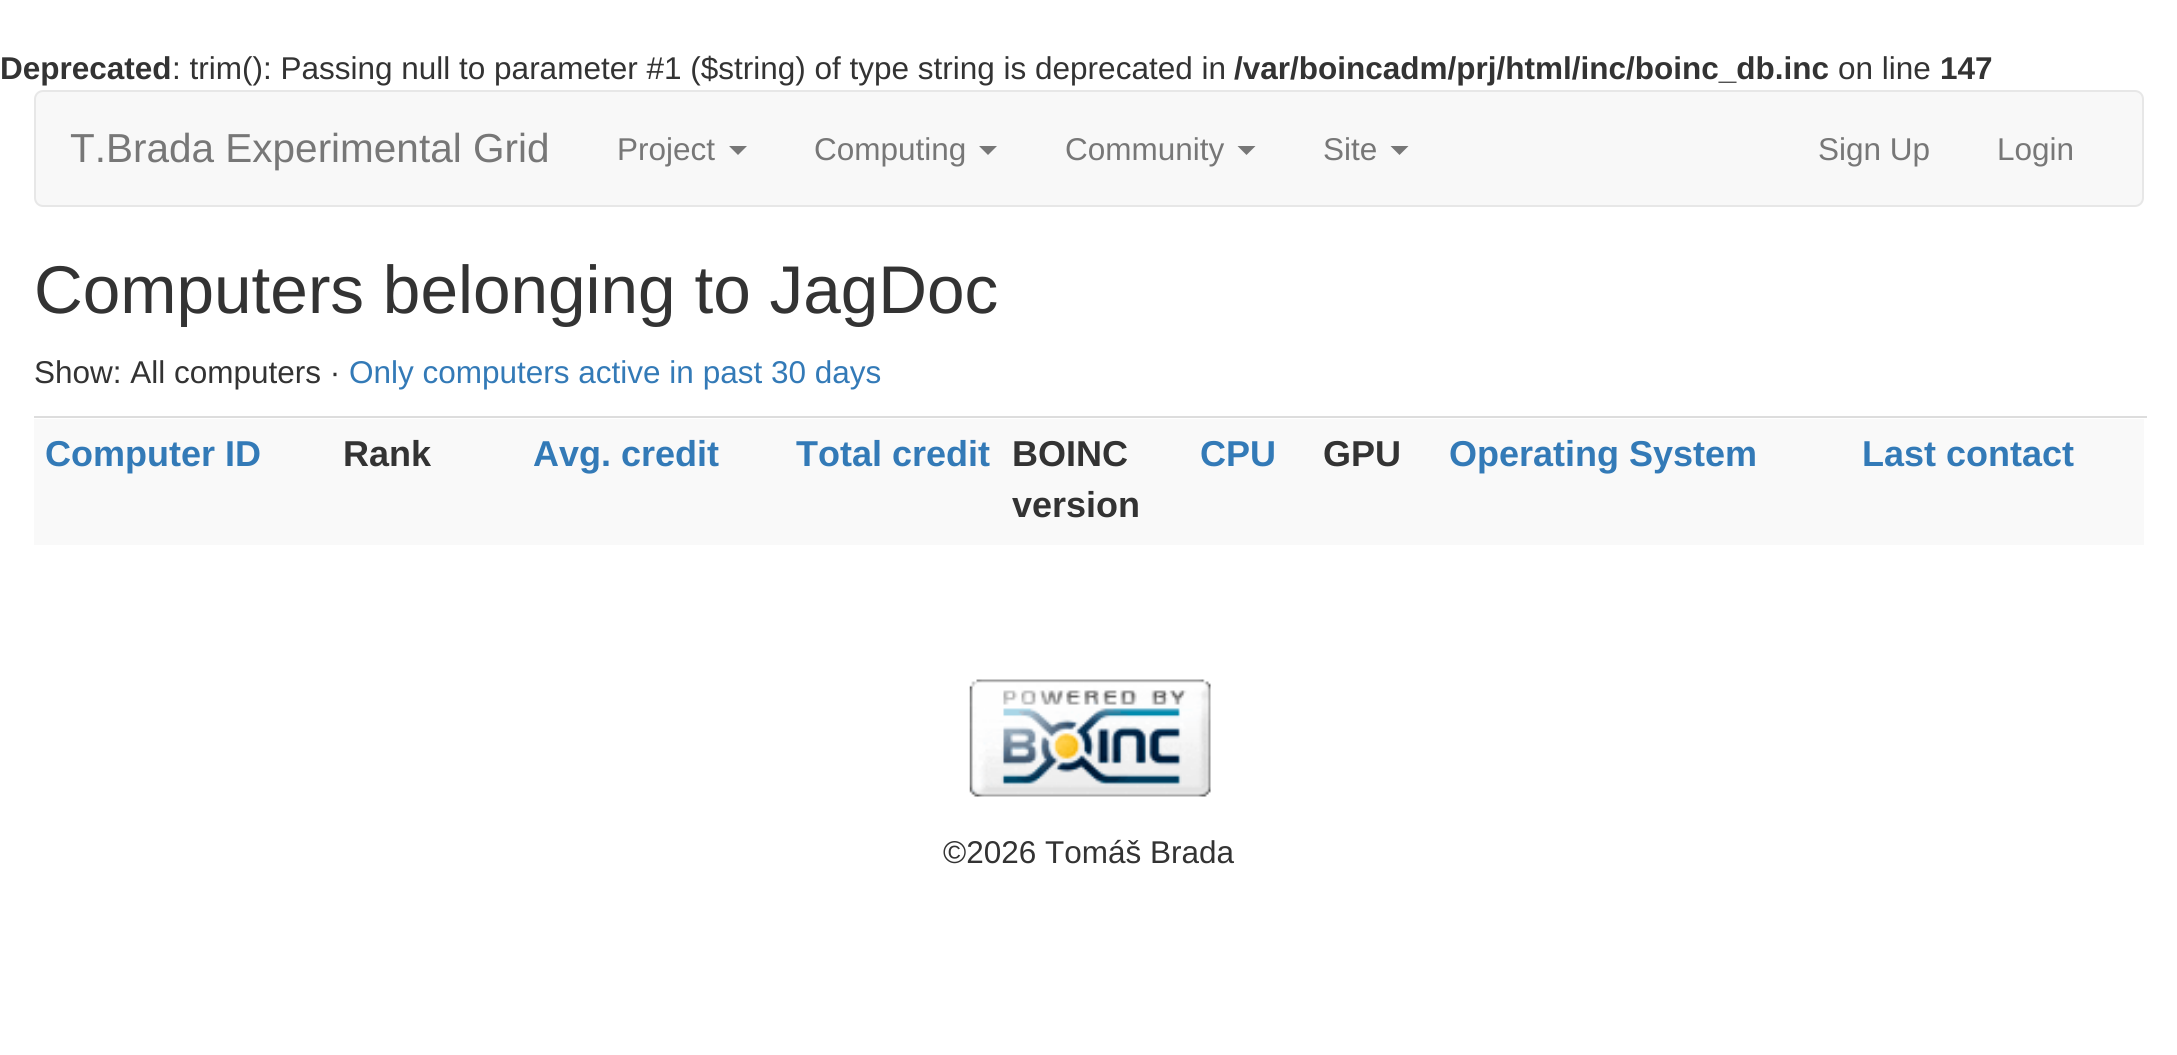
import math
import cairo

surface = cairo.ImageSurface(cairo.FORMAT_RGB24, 2177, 1055)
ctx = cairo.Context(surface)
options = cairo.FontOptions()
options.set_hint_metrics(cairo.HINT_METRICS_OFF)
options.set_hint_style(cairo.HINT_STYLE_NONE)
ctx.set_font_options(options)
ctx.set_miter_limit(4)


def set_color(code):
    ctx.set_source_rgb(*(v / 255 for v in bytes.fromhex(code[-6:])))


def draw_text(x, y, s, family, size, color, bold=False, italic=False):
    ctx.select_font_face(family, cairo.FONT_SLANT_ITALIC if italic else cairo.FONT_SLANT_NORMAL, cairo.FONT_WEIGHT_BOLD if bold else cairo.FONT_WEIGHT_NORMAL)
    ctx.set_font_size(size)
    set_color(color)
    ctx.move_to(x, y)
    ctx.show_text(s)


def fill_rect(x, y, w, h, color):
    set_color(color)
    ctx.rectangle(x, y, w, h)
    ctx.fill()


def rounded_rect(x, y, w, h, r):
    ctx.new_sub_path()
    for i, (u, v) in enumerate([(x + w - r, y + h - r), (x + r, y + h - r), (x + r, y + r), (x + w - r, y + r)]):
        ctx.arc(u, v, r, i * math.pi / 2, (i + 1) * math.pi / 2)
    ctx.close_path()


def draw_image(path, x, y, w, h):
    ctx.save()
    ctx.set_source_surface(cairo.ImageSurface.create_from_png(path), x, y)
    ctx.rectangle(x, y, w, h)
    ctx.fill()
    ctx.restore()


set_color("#ffffff")
ctx.paint()
draw_text(0, 79, "Deprecated", "Liberation Sans", 31.5, "#333333", bold=True)
draw_text(172, 79, ": trim(): Passing null to parameter #1 ($string) of type string is deprecated in", "Liberation Sans", 31.5, "#333333")
draw_text(1234, 79, "/var/boincadm/prj/html/inc/boinc_db.inc", "Liberation Sans", 31.5, "#333333", bold=True)
draw_text(1838, 79, "on line", "Liberation Sans", 31.5, "#333333")
draw_text(1940, 79, "147", "Liberation Sans", 31.5, "#333333", bold=True)
set_color("#f8f8f8")
rounded_rect(35, 91, 2108, 115, 8)
ctx.fill_preserve()
set_color("#e7e7e7")
ctx.stroke()
draw_text(70, 162, "T.Brada Experimental Grid", "Liberation Sans", 40.5, "#777777")
draw_text(617, 160, "Project", "Liberation Sans", 31.5, "#777777")
ctx.new_path()
ctx.move_to(729, 146)
ctx.line_to(747, 146)
ctx.line_to(738, 155)
ctx.close_path()
ctx.fill()
draw_text(814, 160, "Computing", "Liberation Sans", 31.5, "#777777")
ctx.new_path()
ctx.move_to(979, 146)
ctx.line_to(997, 146)
ctx.line_to(988, 155)
ctx.close_path()
ctx.fill()
draw_text(1065, 160, "Community", "Liberation Sans", 31.5, "#777777")
ctx.new_path()
ctx.move_to(1237.5, 146)
ctx.line_to(1255.5, 146)
ctx.line_to(1246.5, 155)
ctx.close_path()
ctx.fill()
draw_text(1323, 160, "Site", "Liberation Sans", 31.5, "#777777")
ctx.new_path()
ctx.move_to(1390.5, 146)
ctx.line_to(1408.5, 146)
ctx.line_to(1399.5, 155)
ctx.close_path()
ctx.fill()
draw_text(1818, 160, "Sign Up", "Liberation Sans", 31.5, "#777777")
draw_text(1997, 160, "Login", "Liberation Sans", 31.5, "#777777")
draw_text(34, 313, "Computers belonging to JagDoc", "Liberation Sans", 67.5, "#333333")
draw_text(34, 383, "Show: All computers ·", "Liberation Sans", 31.5, "#333333")
draw_text(349, 383, "Only computers active in past 30 days", "Liberation Sans", 31.5, "#337ab7")
fill_rect(34, 419, 2110, 126, "#f9f9f9")
draw_text(45, 466, "Computer ID", "Liberation Sans", 36, "#337ab7", bold=True)
draw_text(343, 466, "Rank", "Liberation Sans", 36, "#333333", bold=True)
draw_text(533, 466, "Avg. credit", "Liberation Sans", 36, "#337ab7", bold=True)
draw_text(796, 466, "Total credit", "Liberation Sans", 36, "#337ab7", bold=True)
draw_text(1012, 466, "BOINC", "Liberation Sans", 36, "#333333", bold=True)
draw_text(1012, 517, "version", "Liberation Sans", 36, "#333333", bold=True)
draw_text(1200, 466, "CPU", "Liberation Sans", 36, "#337ab7", bold=True)
draw_text(1323, 466, "GPU", "Liberation Sans", 36, "#333333", bold=True)
draw_text(1449, 466, "Operating System", "Liberation Sans", 36, "#337ab7", bold=True)
fill_rect(34, 416, 2113, 2, "#dddddd")
draw_text(1862, 466, "Last contact", "Liberation Sans", 36, "#337ab7", bold=True)
draw_image("assets/img1.png", 969, 679, 242, 118)
draw_text(943, 863, "©2026 Tomáš Brada", "Liberation Sans", 31.5, "#333333")
surface.write_to_png("output.png")
